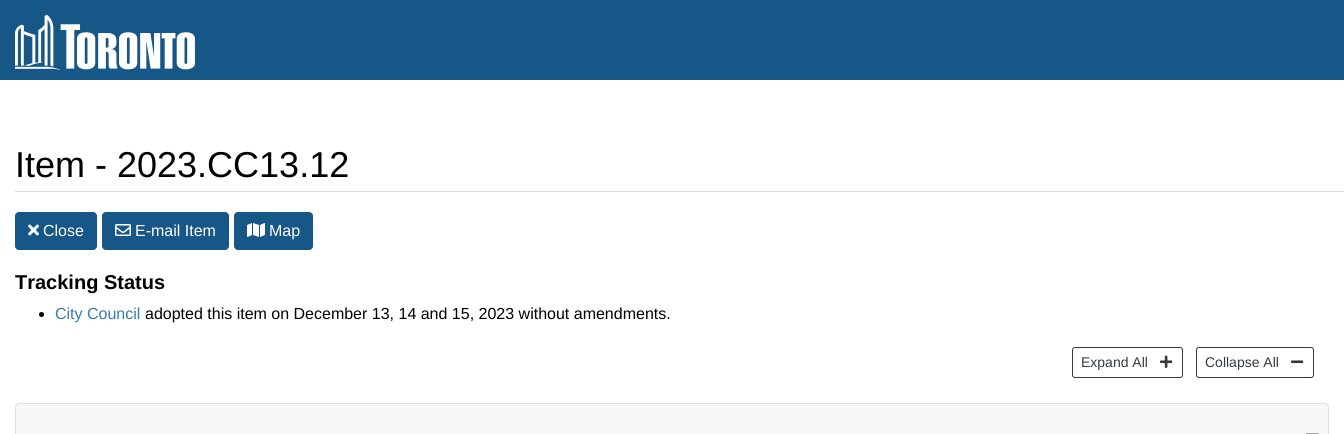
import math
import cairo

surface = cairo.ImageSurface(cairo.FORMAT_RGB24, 1344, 434)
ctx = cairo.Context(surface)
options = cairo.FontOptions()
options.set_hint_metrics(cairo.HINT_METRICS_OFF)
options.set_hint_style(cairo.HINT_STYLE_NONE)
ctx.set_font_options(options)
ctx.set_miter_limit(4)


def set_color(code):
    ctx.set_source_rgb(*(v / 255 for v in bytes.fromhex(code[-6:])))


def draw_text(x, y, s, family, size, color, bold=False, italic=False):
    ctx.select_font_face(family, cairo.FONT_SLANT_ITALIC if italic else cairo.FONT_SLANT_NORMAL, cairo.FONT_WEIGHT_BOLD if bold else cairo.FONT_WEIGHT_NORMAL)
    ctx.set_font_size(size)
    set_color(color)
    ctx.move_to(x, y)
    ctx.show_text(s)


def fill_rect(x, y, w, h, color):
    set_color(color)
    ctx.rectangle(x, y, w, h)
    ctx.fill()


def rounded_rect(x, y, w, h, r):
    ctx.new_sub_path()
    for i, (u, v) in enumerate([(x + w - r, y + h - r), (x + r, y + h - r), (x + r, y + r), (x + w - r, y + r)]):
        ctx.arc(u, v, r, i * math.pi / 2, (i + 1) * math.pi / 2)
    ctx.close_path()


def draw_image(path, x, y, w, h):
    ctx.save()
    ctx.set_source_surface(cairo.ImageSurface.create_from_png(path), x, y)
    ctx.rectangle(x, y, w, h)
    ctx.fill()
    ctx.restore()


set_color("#ffffff")
ctx.paint()
fill_rect(0, 0, 1344, 80, "#165788")
draw_image("assets/img1.png", 15, 15, 180, 55)
fill_rect(15, 191, 1329, 1, "#dddddd")
draw_text(15, 177, "Item - 2023.CC13.12", "Liberation Sans", 36, "#000000")
set_color("#165788")
rounded_rect(15.5, 212.5, 81, 37, 3.5)
ctx.fill_preserve()
ctx.set_line_width(1)
ctx.stroke()
draw_image("assets/img2.png", 28, 224, 11, 12)
draw_text(43, 236, "Close", "Liberation Sans", 16, "#ffffff")
set_color("#165788")
rounded_rect(102.5, 212.5, 126, 37, 3.5)
ctx.fill_preserve()
ctx.stroke()
draw_image("assets/img3.png", 115, 224, 16, 12)
draw_text(135, 236, "E-mail Item", "Liberation Sans", 16, "#ffffff")
set_color("#165788")
rounded_rect(234.5, 212.5, 78, 37, 3.5)
ctx.fill_preserve()
ctx.stroke()
draw_image("assets/img4.png", 247, 223, 18, 14)
draw_text(269, 236, "Map", "Liberation Sans", 16, "#ffffff")
draw_text(15, 289, "Tracking Status", "Liberation Sans", 20, "#000000", bold=True)
ctx.new_path()
ctx.arc(41.5, 314.5, 2.5, 0, 2 * math.pi)
ctx.fill()
draw_text(55, 319, "City Council", "Liberation Sans", 16, "#337ab7")
draw_text(145, 319, "adopted this item on December 13, 14 and 15, 2023 without amendments.", "Liberation Sans", 16, "#000000")
rounded_rect(1072.5, 347.5, 110, 30, 2.5)
set_color("#343a40")
ctx.stroke()
draw_text(1081, 367, "Expand All", "Liberation Sans", 14, "#343a40")
draw_image("assets/img5.png", 1160, 355, 13, 13)
rounded_rect(1196.5, 347.5, 117, 30, 2.5)
ctx.stroke()
draw_text(1205, 367, "Collapse All", "Liberation Sans", 14, "#343a40")
draw_image("assets/img6.png", 1291, 360, 13, 4)
rounded_rect(15.5, 403.5, 1313, 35, 3.5)
set_color("#dfdfdf")
ctx.stroke()
ctx.set_source_rgba(0, 0, 0, 0.03)
ctx.rectangle(16, 404, 1312, 30)
ctx.fill()
draw_image("assets/img7.png", 1306, 433, 13, 1)
surface.write_to_png("output.png")
